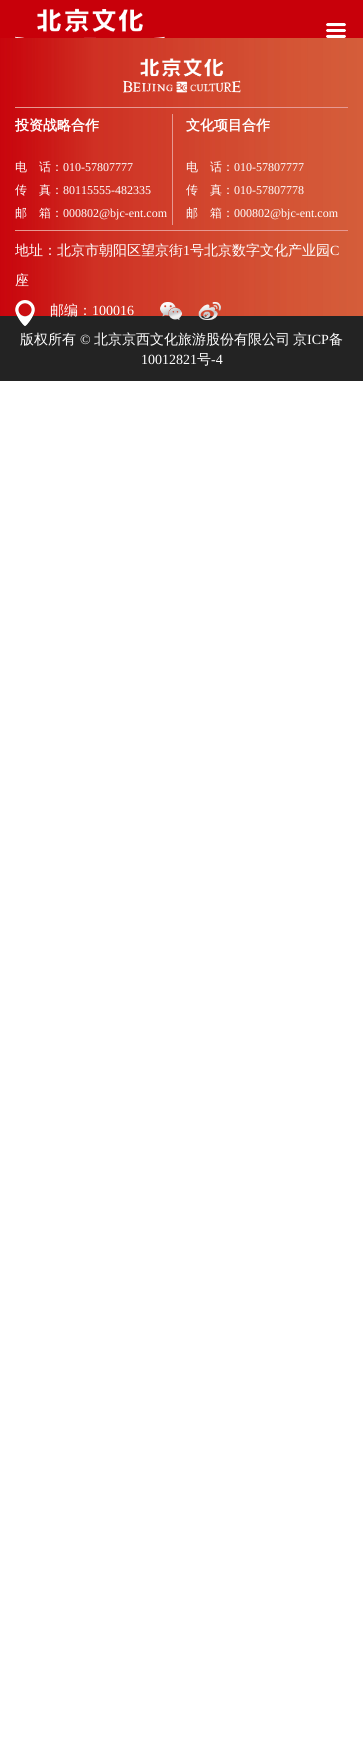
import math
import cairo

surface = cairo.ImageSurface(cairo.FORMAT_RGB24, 363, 1754)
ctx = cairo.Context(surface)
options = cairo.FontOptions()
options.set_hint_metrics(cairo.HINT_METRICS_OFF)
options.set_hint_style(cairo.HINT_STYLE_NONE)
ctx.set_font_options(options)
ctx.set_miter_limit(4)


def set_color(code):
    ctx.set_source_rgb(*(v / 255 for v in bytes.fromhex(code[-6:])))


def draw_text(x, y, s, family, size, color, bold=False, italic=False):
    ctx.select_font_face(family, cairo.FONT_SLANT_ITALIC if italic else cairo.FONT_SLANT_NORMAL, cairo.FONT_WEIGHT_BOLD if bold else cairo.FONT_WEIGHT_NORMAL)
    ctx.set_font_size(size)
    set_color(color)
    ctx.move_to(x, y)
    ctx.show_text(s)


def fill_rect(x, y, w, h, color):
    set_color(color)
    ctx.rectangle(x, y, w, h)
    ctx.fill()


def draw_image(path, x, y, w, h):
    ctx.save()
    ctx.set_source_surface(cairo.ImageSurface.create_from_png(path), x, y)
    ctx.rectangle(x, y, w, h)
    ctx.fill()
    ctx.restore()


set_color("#ffffff")
ctx.paint()
fill_rect(0, 0, 363, 38, "#c8000a")
draw_image("assets/img1.png", 15, 8, 150, 30)
draw_image("assets/img2.png", 326, 23, 20, 15)
draw_image("assets/img3.png", 0, 38, 363, 278)
draw_image("assets/img4.png", 123, 58, 118, 35)
fill_rect(15, 107, 333, 1, "#e79992")
fill_rect(15, 230, 333, 1, "#e79992")
ctx.save()
ctx.rectangle(15, 38, 333, 193)
ctx.clip()
draw_text(15, 130, "投资战略合作", "WenQuanYi Zen Hei", 14, "#ffffff", bold=True)
ctx.restore()
draw_text(15, 171, "电　话：", "WenQuanYi Zen Hei Medium", 12, "#ffffff")
draw_text(63, 171, "010-57807777", "Liberation Serif", 12, "#ffffff")
draw_text(15, 194, "传　真：", "WenQuanYi Zen Hei Medium", 12, "#ffffff")
draw_text(63, 194, "80115555-482335", "Liberation Serif", 12, "#ffffff")
draw_text(15, 217, "邮　箱：", "WenQuanYi Zen Hei Medium", 12, "#ffffff")
draw_text(63, 217, "000802@bjc-ent.com", "Liberation Serif", 12, "#ffffff")
fill_rect(172, 114, 1, 111, "#e79992")
draw_text(186, 130, "文化项目合作", "WenQuanYi Zen Hei", 14, "#ffffff", bold=True)
draw_text(186, 171, "电　话：", "WenQuanYi Zen Hei Medium", 12, "#ffffff")
draw_text(234, 171, "010-57807777", "Liberation Serif", 12, "#ffffff")
draw_text(186, 194, "传　真：", "WenQuanYi Zen Hei Medium", 12, "#ffffff")
draw_text(234, 194, "010-57807778", "Liberation Serif", 12, "#ffffff")
draw_text(186, 217, "邮　箱：", "WenQuanYi Zen Hei Medium", 12, "#ffffff")
draw_text(234, 217, "000802@bjc-ent.com", "Liberation Serif", 12, "#ffffff")
draw_text(15, 255, "地址：北京市朝阳区望京街", "WenQuanYi Zen Hei Medium", 14, "#ffffff")
draw_text(183, 255, "1", "Liberation Serif", 14, "#ffffff")
draw_text(190, 255, "号北京数字文化产业园", "WenQuanYi Zen Hei Medium", 14, "#ffffff")
draw_text(330, 255, "C", "Liberation Serif", 14, "#ffffff")
draw_text(15, 285, "座", "WenQuanYi Zen Hei Medium", 14, "#ffffff")
fill_rect(0, 316, 363, 65, "#232323")
draw_image("assets/img5.png", 15, 300, 20, 26)
draw_text(50, 315, "邮编：", "WenQuanYi Zen Hei Medium", 14, "#ffffff")
draw_text(92, 315, "100016", "Liberation Serif", 14, "#ffffff")
draw_image("assets/img6.png", 160, 302, 22, 18)
draw_image("assets/img7.png", 198, 302, 23, 18)
draw_text(20, 344, "版权所有", "WenQuanYi Zen Hei Medium", 14, "#ffffff")
draw_text(80, 344, "©", "Liberation Serif", 14, "#ffffff")
draw_text(94, 344, "北京京西文化旅游股份有限公司", "WenQuanYi Zen Hei Medium", 14, "#ffffff")
draw_text(293, 344, "京", "WenQuanYi Zen Hei Medium", 14, "#ffffff")
draw_text(307, 344, "ICP", "Liberation Serif", 14, "#ffffff")
draw_text(329, 344, "备", "WenQuanYi Zen Hei Medium", 14, "#ffffff")
draw_text(141, 364, "10012821", "Liberation Serif", 14, "#ffffff")
draw_text(197, 364, "号", "WenQuanYi Zen Hei Medium", 14, "#ffffff")
draw_text(211, 364, "-4", "Liberation Serif", 14, "#ffffff")
surface.write_to_png("output.png")
